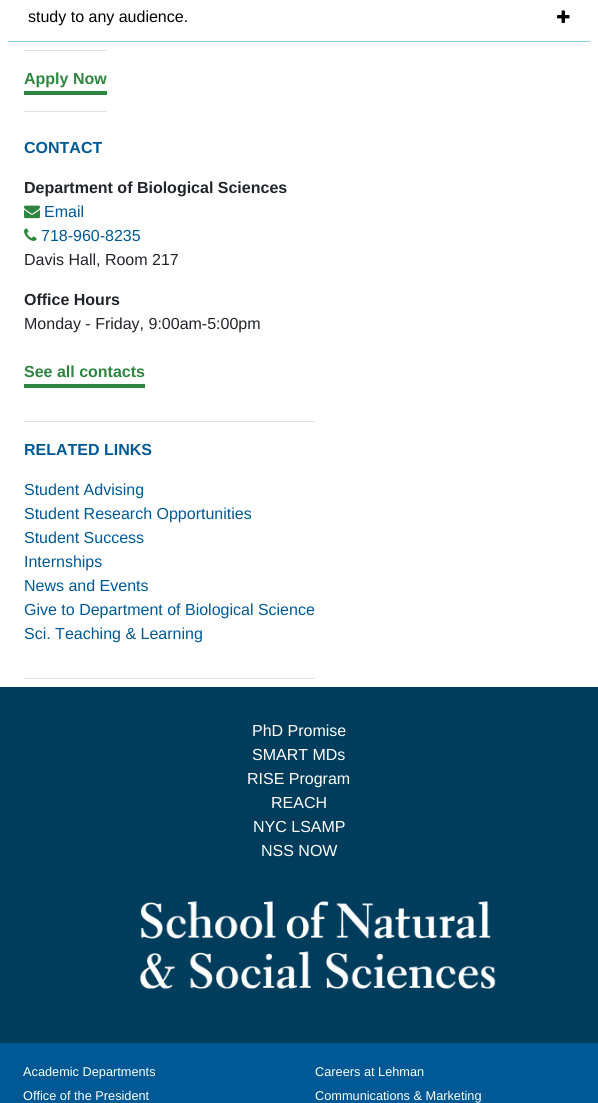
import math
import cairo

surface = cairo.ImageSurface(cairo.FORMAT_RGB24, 598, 1103)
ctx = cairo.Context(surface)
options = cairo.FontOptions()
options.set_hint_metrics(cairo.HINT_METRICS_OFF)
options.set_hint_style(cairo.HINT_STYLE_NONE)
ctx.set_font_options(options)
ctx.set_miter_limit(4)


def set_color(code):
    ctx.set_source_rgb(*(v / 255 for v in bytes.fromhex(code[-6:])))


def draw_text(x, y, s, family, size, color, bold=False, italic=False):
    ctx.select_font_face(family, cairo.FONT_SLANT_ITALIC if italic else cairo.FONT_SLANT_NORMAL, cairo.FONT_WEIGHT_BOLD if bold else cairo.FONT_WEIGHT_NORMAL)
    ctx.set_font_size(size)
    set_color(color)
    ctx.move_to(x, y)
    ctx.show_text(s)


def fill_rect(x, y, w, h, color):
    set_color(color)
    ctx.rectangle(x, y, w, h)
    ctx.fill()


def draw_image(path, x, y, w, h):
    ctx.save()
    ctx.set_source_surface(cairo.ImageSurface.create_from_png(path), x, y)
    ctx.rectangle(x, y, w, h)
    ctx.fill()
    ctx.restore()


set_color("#ffffff")
ctx.paint()
fill_rect(8, 41, 582, 1, "#87ceeb")
draw_text(28, 22, "study to any audience.", "Liberation Sans", 16, "#000000")
draw_image("assets/img1.png", 557, 10, 13, 13)
fill_rect(24, 50, 83, 1, "#dee2e6")
fill_rect(24, 111, 83, 1, "#dee2e6")
fill_rect(24, 91, 83, 4, "#2e8540")
draw_text(24, 84, "Apply Now", "Liberation Sans", 16, "#2e8540", bold=True)
draw_text(24, 153, "CONTACT", "Liberation Sans", 16, "#005994", bold=True)
draw_text(24, 193, "Department of Biological Sciences", "Liberation Sans", 16, "#212529", bold=True)
draw_image("assets/img2.png", 24, 205, 16, 14)
draw_text(44, 217, "Email", "Liberation Sans", 16, "#005994")
draw_image("assets/img3.png", 24, 228, 13, 13)
draw_text(41, 241, "718-960-8235", "Liberation Sans", 16, "#005994")
draw_text(24, 265, "Davis Hall, Room 217", "Liberation Sans", 16, "#212529")
draw_text(24, 305, "Office Hours", "Liberation Sans", 16, "#212529", bold=True)
draw_text(24, 329, "Monday - Friday, 9:00am-5:00pm", "Liberation Sans", 16, "#212529")
fill_rect(24, 384, 121, 4, "#2e8540")
draw_text(24, 377, "See all contacts", "Liberation Sans", 16, "#2e8540", bold=True)
fill_rect(24, 421, 291, 1, "#dee2e6")
fill_rect(24, 678, 291, 1, "#dee2e6")
draw_text(24, 455, "RELATED LINKS", "Liberation Sans", 16, "#005994", bold=True)
draw_text(24, 495, "Student Advising", "Liberation Sans", 16, "#005994")
draw_text(24, 519, "Student Research Opportunities", "Liberation Sans", 16, "#005994")
draw_text(24, 543, "Student Success", "Liberation Sans", 16, "#005994")
draw_text(24, 567, "Internships", "Liberation Sans", 16, "#005994")
draw_text(24, 591, "News and Events", "Liberation Sans", 16, "#005994")
draw_text(24, 615, "Give to Department of Biological Science", "Liberation Sans", 16, "#005994")
draw_text(24, 639, "Sci. Teaching & Learning", "Liberation Sans", 16, "#005994")
fill_rect(0, 687, 598, 356, "#003c5b")
draw_text(252, 736, "PhD Promise", "Liberation Sans", 16, "#ffffff")
draw_text(252, 760, "SMART MDs", "Liberation Sans", 16, "#ffffff")
draw_text(247, 784, "RISE Program", "Liberation Sans", 16, "#ffffff")
draw_text(271, 808, "REACH", "Liberation Sans", 16, "#ffffff")
draw_text(253, 832, "NYC LSAMP", "Liberation Sans", 16, "#ffffff")
draw_text(261, 856, "NSS NOW", "Liberation Sans", 16, "#ffffff")
draw_image("assets/img4.png", 140, 901, 356, 88)
fill_rect(0, 1043, 598, 60, "#005994")
draw_text(23, 1076, "Academic Departments", "Liberation Sans", 12.75, "#ffffff")
draw_text(23, 1100, "Office of the President", "Liberation Sans", 12.75, "#ffffff")
draw_text(315, 1076, "Careers at Lehman", "Liberation Sans", 12.75, "#ffffff")
draw_text(315, 1100, "Communications & Marketing", "Liberation Sans", 12.75, "#ffffff")
surface.write_to_png("output.png")
